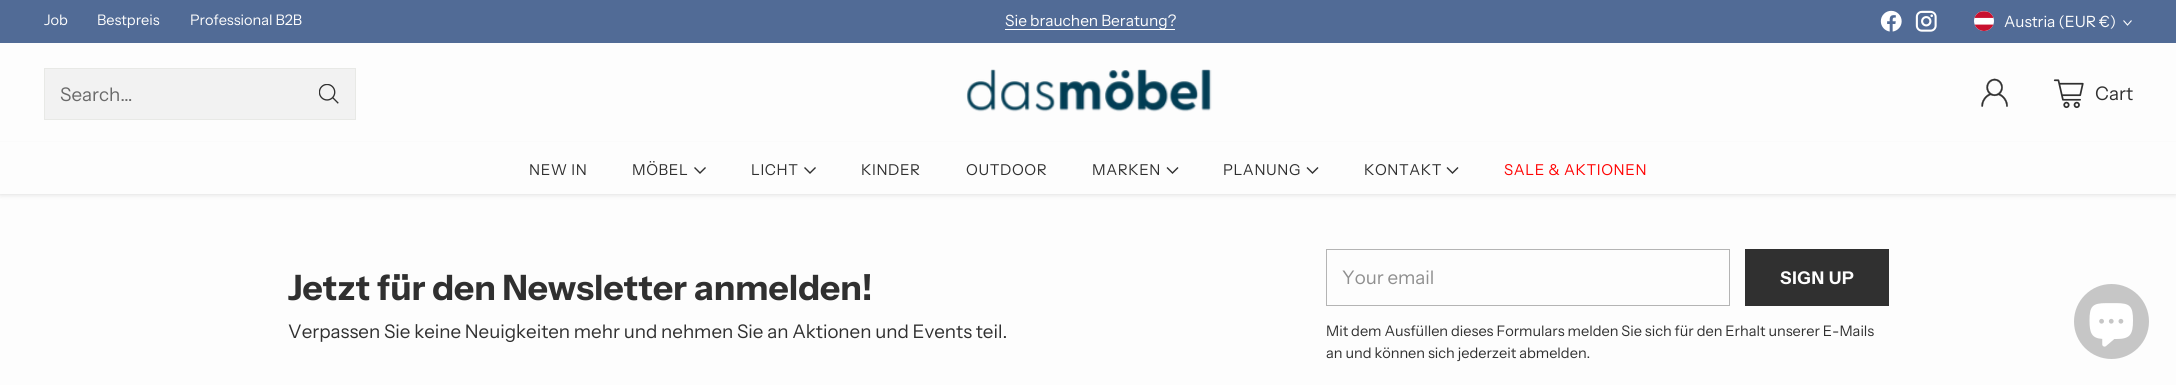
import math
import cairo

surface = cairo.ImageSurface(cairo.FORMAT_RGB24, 2176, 385)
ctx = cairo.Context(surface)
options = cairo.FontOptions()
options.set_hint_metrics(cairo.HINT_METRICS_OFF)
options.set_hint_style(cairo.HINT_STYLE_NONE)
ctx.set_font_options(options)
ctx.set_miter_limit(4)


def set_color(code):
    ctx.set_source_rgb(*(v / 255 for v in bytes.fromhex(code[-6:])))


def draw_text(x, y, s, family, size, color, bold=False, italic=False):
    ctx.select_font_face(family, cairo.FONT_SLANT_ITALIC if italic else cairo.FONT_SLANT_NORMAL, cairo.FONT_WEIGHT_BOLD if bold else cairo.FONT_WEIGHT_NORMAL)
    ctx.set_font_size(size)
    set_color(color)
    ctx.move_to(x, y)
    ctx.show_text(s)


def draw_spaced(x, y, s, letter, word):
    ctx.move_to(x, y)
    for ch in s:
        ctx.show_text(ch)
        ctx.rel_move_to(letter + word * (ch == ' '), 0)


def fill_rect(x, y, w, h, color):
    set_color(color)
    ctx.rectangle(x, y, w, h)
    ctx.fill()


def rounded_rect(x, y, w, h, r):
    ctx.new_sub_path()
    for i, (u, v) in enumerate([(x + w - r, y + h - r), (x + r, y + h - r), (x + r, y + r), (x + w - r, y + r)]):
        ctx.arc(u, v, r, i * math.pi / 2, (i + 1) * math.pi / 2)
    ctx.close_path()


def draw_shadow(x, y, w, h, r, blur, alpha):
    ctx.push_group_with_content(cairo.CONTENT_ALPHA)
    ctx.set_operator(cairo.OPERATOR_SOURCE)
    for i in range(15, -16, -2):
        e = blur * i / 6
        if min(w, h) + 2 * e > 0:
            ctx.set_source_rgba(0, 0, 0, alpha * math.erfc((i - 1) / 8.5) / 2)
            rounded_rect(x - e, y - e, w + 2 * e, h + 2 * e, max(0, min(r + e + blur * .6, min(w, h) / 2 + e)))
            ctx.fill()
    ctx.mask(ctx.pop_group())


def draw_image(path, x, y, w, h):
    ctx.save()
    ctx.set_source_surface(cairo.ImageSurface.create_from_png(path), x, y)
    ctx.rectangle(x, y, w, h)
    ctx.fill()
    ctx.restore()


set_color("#fdfdfd")
ctx.paint()
fill_rect(0, 0, 2176, 43, "#516b96")
draw_text(44, 25, "Job", "Instrument Sans", 14.55, "#fdfdfd")
draw_text(97, 25, "Bestpreis", "Instrument Sans", 14.55, "#fdfdfd")
draw_text(190, 25, "Professional B2B", "Instrument Sans", 14.55, "#fdfdfd")
fill_rect(1005, 29, 170, 1, "#ffffff")
draw_text(1005, 26, "Sie brauchen Beratung?", "Instrument Sans", 15.5, "#fdfdfd")
draw_image("assets/img1.png", 1880, 10, 22, 22)
draw_image("assets/img2.png", 1915, 10, 22, 22)
draw_image("assets/img3.png", 1974, 11, 20, 20)
draw_text(2004, 27, "Austria (EUR €)", "Instrument Sans", 15.5, "#fdfdfd")
ctx.new_path()
ctx.move_to(2123.5, 20.5)
ctx.line_to(2127.5, 25)
ctx.line_to(2131.5, 20.5)
set_color("#ffffff")
ctx.set_line_width(1.1)
ctx.stroke()
ctx.rectangle(44.5, 68.5, 311, 51)
set_color("#e8e9e6")
ctx.set_line_width(1)
ctx.stroke()
fill_rect(45, 69, 310, 50, "#f2f2f2")
draw_text(60, 101, "Search…", "Instrument Sans", 18.75, "#6a6a6a")
draw_image("assets/img4.png", 319, 84, 20, 20)
draw_image("assets/img5.png", 966, 69, 246, 43)
draw_image("assets/img6.png", 1981, 78, 27, 29)
draw_image("assets/img7.png", 2053, 79, 31, 30)
draw_text(2095, 100, "Cart", "Instrument Sans", 18.75, "#303030")
set_color("#000000")
draw_shadow(0, 146, 2176, 48, 0, 3, 0.15)
fill_rect(0, 142, 2176, 52, "#fdfdfd")
ctx.set_font_size(15)
set_color("#303030")
draw_spaced(529, 175, "NEW IN", 0.6, 0)
draw_spaced(632, 175, "MÖBEL", 0.6, 0)
ctx.new_path()
ctx.move_to(694.5, 167.5)
ctx.line_to(700, 173)
ctx.line_to(705.5, 167.5)
ctx.set_line_width(1.4)
ctx.stroke()
draw_spaced(751, 175, "LICHT", 0.6, 0)
ctx.new_path()
ctx.move_to(804.5, 167.5)
ctx.line_to(810, 173)
ctx.line_to(815.5, 167.5)
ctx.stroke()
draw_spaced(861, 175, "KINDER", 0.6, 0)
draw_spaced(966, 175, "OUTDOOR", 0.6, 0)
draw_spaced(1092, 175, "MARKEN", 0.6, 0)
ctx.new_path()
ctx.move_to(1167, 167.5)
ctx.line_to(1172.5, 173)
ctx.line_to(1178, 167.5)
ctx.stroke()
draw_spaced(1223, 175, "PLANUNG", 0.6, 0)
ctx.new_path()
ctx.move_to(1307, 167.5)
ctx.line_to(1312.5, 173)
ctx.line_to(1318, 167.5)
ctx.stroke()
draw_spaced(1364, 175, "KONTAKT", 0.6, 0)
ctx.new_path()
ctx.move_to(1447, 167.5)
ctx.line_to(1452.5, 173)
ctx.line_to(1458, 167.5)
ctx.stroke()
set_color("#ff0303")
draw_spaced(1504, 175, "SALE & AKTIONEN", 0.6, 0)
draw_text(288, 300, "Jetzt für den Newsletter anmelden!", "Instrument Sans", 35, "#303030", bold=True)
draw_text(288, 338, "Verpassen Sie keine Neuigkeiten mehr und nehmen Sie an Aktionen und Events teil.", "Instrument Sans", 18.75, "#303030")
ctx.rectangle(1326.5, 249.5, 403, 56)
set_color("#b4b4b4")
ctx.set_line_width(1)
ctx.stroke()
draw_text(1342, 284, "Your email", "Instrument Sans", 18.75, "#8f8f8f")
fill_rect(1745, 249, 144, 57, "#303030")
ctx.select_font_face("Instrument Sans", cairo.FONT_SLANT_NORMAL, cairo.FONT_WEIGHT_BOLD)
ctx.set_font_size(17.5)
set_color("#fdfdfd")
draw_spaced(1780, 284, "SIGN UP", 0.75, 0)
draw_text(1326, 336, "Mit dem Ausfüllen dieses Formulars melden Sie sich für den Erhalt unserer E-Mails", "Instrument Sans", 14.55, "#303030")
draw_text(1326, 358, "an und können sich jederzeit abmelden.", "Instrument Sans", 14.55, "#303030")
set_color("#c6c6c6")
ctx.new_path()
ctx.arc(2111.5, 321.5, 37.5, 0, 2 * math.pi)
ctx.fill()
draw_image("assets/img8.png", 2089, 303, 44, 44)
surface.write_to_png("output.png")
